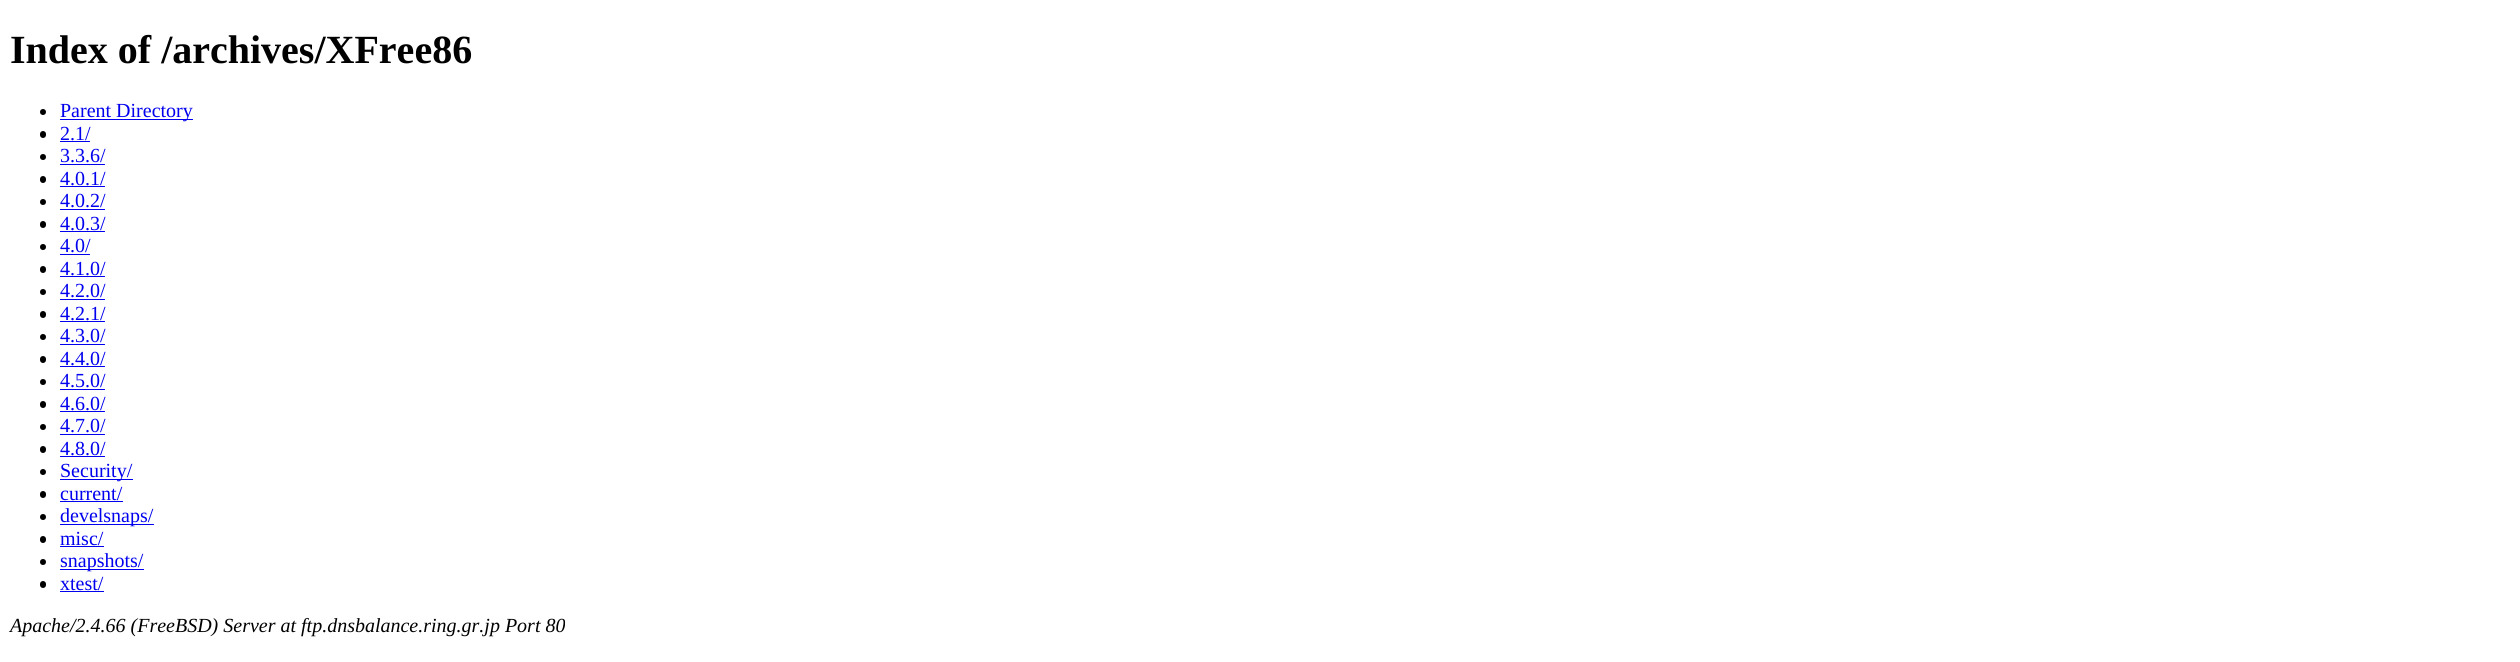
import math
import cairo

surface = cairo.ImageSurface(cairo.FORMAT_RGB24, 2520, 662)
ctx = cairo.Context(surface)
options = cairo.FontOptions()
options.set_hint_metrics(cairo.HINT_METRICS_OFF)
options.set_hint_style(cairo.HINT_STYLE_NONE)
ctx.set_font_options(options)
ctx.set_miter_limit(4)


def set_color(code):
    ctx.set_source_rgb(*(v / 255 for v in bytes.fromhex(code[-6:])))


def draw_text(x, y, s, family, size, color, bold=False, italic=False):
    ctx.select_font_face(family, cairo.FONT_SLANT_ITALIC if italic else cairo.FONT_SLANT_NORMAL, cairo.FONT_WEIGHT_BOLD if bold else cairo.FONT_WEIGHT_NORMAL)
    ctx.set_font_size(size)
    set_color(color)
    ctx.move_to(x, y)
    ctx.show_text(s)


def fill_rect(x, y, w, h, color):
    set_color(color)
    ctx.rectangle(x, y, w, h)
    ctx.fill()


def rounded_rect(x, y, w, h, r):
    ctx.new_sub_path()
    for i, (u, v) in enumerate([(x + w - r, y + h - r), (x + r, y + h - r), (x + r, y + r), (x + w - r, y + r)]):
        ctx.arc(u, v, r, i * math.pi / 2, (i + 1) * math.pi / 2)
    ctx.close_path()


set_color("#ffffff")
ctx.paint()
draw_text(10, 63, "Index of /archives/XFree86", "Liberation Serif", 40, "#000000", bold=True)
ctx.new_path()
ctx.arc(43, 112, 3, 0, 2 * math.pi)
ctx.fill()
fill_rect(60, 119, 133, 1, "#0000ee")
draw_text(60, 117, "Parent Directory", "Liberation Serif", 20, "#0000ee")
set_color("#000000")
rounded_rect(40, 131, 6, 7, 3)
ctx.fill()
draw_text(60, 140, "2.1/", "Liberation Serif", 20, "#0000ee")
fill_rect(60, 141, 30, 1, "#0000ee")
set_color("#000000")
ctx.new_path()
ctx.arc(43, 157, 3, 0, 2 * math.pi)
ctx.fill()
draw_text(60, 162, "3.3.6/", "Liberation Serif", 20, "#0000ee")
fill_rect(60, 164, 45, 1, "#0000ee")
set_color("#000000")
rounded_rect(40, 176, 6, 7, 3)
ctx.fill()
draw_text(60, 185, "4.0.1/", "Liberation Serif", 20, "#0000ee")
fill_rect(60, 186, 45, 1, "#0000ee")
set_color("#000000")
ctx.new_path()
ctx.arc(43, 202, 3, 0, 2 * math.pi)
ctx.fill()
draw_text(60, 207, "4.0.2/", "Liberation Serif", 20, "#0000ee")
fill_rect(60, 209, 45, 1, "#0000ee")
set_color("#000000")
rounded_rect(40, 221, 6, 7, 3)
ctx.fill()
draw_text(60, 230, "4.0.3/", "Liberation Serif", 20, "#0000ee")
fill_rect(60, 231, 45, 1, "#0000ee")
set_color("#000000")
ctx.new_path()
ctx.arc(43, 247, 3, 0, 2 * math.pi)
ctx.fill()
draw_text(60, 252, "4.0/", "Liberation Serif", 20, "#0000ee")
fill_rect(60, 254, 30, 1, "#0000ee")
set_color("#000000")
rounded_rect(40, 266, 6, 7, 3)
ctx.fill()
draw_text(60, 275, "4.1.0/", "Liberation Serif", 20, "#0000ee")
fill_rect(60, 276, 45, 1, "#0000ee")
set_color("#000000")
ctx.new_path()
ctx.arc(43, 292, 3, 0, 2 * math.pi)
ctx.fill()
draw_text(60, 297, "4.2.0/", "Liberation Serif", 20, "#0000ee")
fill_rect(60, 299, 45, 1, "#0000ee")
set_color("#000000")
rounded_rect(40, 311, 6, 7, 3)
ctx.fill()
draw_text(60, 320, "4.2.1/", "Liberation Serif", 20, "#0000ee")
fill_rect(60, 321, 45, 1, "#0000ee")
set_color("#000000")
ctx.new_path()
ctx.arc(43, 337, 3, 0, 2 * math.pi)
ctx.fill()
draw_text(60, 342, "4.3.0/", "Liberation Serif", 20, "#0000ee")
fill_rect(60, 344, 45, 1, "#0000ee")
set_color("#000000")
rounded_rect(40, 356, 6, 7, 3)
ctx.fill()
draw_text(60, 365, "4.4.0/", "Liberation Serif", 20, "#0000ee")
fill_rect(60, 366, 45, 1, "#0000ee")
set_color("#000000")
ctx.new_path()
ctx.arc(43, 382, 3, 0, 2 * math.pi)
ctx.fill()
draw_text(60, 387, "4.5.0/", "Liberation Serif", 20, "#0000ee")
fill_rect(60, 389, 45, 1, "#0000ee")
set_color("#000000")
rounded_rect(40, 401, 6, 7, 3)
ctx.fill()
draw_text(60, 410, "4.6.0/", "Liberation Serif", 20, "#0000ee")
fill_rect(60, 411, 45, 1, "#0000ee")
set_color("#000000")
ctx.new_path()
ctx.arc(43, 427, 3, 0, 2 * math.pi)
ctx.fill()
draw_text(60, 432, "4.7.0/", "Liberation Serif", 20, "#0000ee")
fill_rect(60, 434, 45, 1, "#0000ee")
set_color("#000000")
rounded_rect(40, 446, 6, 7, 3)
ctx.fill()
draw_text(60, 455, "4.8.0/", "Liberation Serif", 20, "#0000ee")
fill_rect(60, 456, 45, 1, "#0000ee")
set_color("#000000")
ctx.new_path()
ctx.arc(43, 472, 3, 0, 2 * math.pi)
ctx.fill()
fill_rect(60, 479, 73, 1, "#0000ee")
draw_text(60, 477, "Security/", "Liberation Serif", 20, "#0000ee")
set_color("#000000")
rounded_rect(40, 491, 6, 7, 3)
ctx.fill()
draw_text(60, 500, "current/", "Liberation Serif", 20, "#0000ee")
fill_rect(60, 501, 63, 1, "#0000ee")
set_color("#000000")
ctx.new_path()
ctx.arc(43, 517, 3, 0, 2 * math.pi)
ctx.fill()
fill_rect(60, 524, 94, 1, "#0000ee")
draw_text(60, 522, "develsnaps/", "Liberation Serif", 20, "#0000ee")
set_color("#000000")
rounded_rect(40, 536, 6, 7, 3)
ctx.fill()
draw_text(60, 545, "misc/", "Liberation Serif", 20, "#0000ee")
fill_rect(60, 546, 44, 1, "#0000ee")
set_color("#000000")
ctx.new_path()
ctx.arc(43, 562, 3, 0, 2 * math.pi)
ctx.fill()
fill_rect(60, 569, 84, 1, "#0000ee")
draw_text(60, 567, "snapshots/", "Liberation Serif", 20, "#0000ee")
set_color("#000000")
rounded_rect(40, 581, 6, 7, 3)
ctx.fill()
draw_text(60, 590, "xtest/", "Liberation Serif", 20, "#0000ee")
fill_rect(60, 591, 44, 1, "#0000ee")
draw_text(10, 632, "Apache/2.4.66 (FreeBSD) Server at ftp.dnsbalance.ring.gr.jp Port 80", "Liberation Serif", 20, "#000000", italic=True)
surface.write_to_png("output.png")
